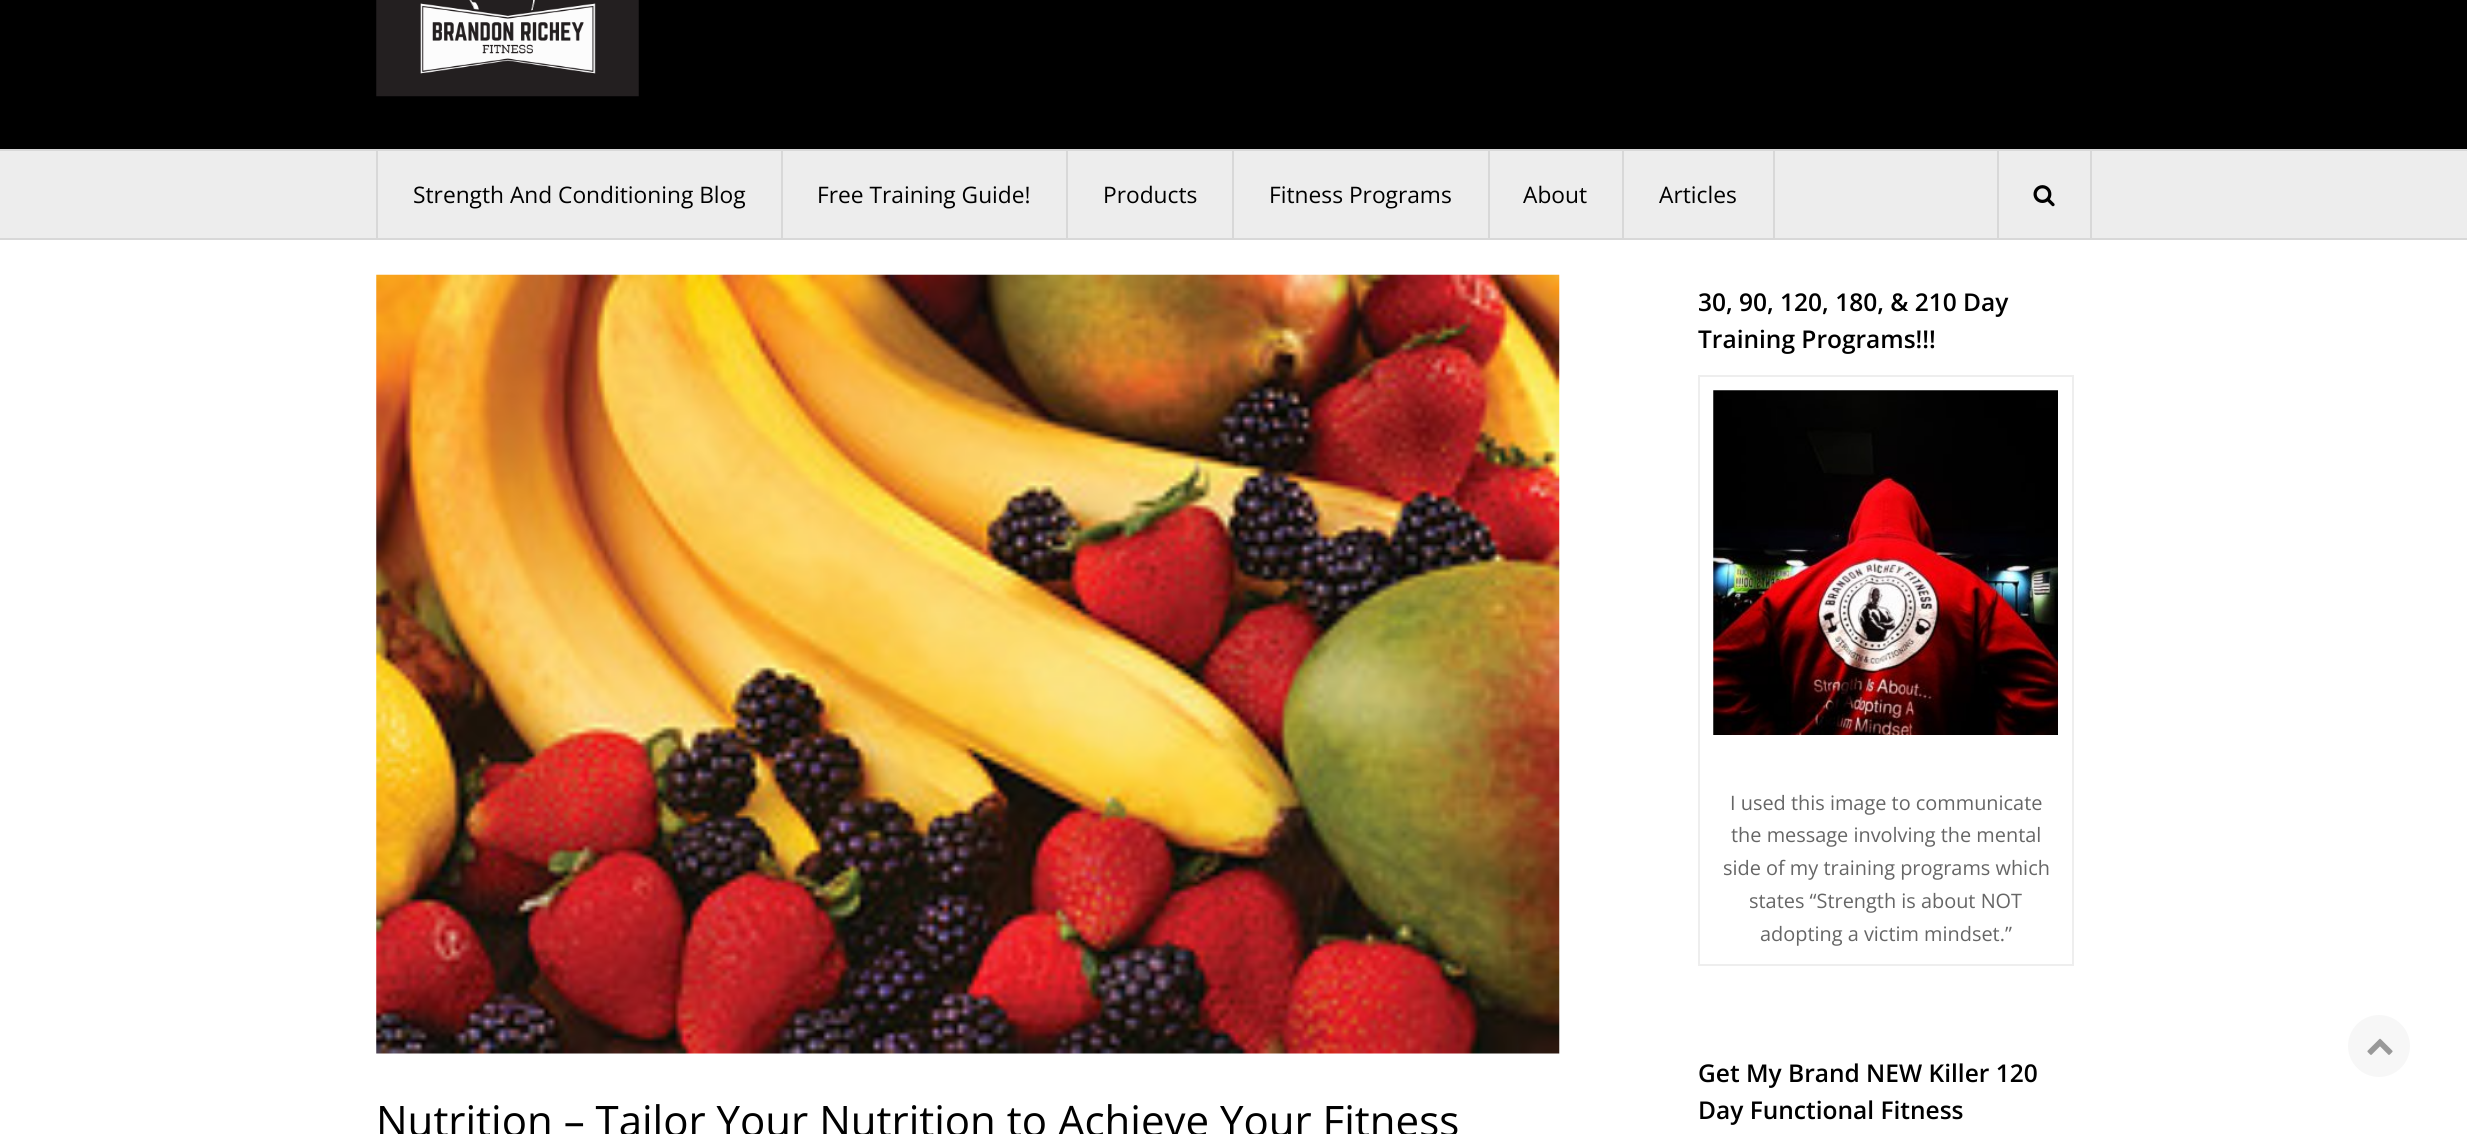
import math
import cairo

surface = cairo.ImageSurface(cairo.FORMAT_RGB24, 2467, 1134)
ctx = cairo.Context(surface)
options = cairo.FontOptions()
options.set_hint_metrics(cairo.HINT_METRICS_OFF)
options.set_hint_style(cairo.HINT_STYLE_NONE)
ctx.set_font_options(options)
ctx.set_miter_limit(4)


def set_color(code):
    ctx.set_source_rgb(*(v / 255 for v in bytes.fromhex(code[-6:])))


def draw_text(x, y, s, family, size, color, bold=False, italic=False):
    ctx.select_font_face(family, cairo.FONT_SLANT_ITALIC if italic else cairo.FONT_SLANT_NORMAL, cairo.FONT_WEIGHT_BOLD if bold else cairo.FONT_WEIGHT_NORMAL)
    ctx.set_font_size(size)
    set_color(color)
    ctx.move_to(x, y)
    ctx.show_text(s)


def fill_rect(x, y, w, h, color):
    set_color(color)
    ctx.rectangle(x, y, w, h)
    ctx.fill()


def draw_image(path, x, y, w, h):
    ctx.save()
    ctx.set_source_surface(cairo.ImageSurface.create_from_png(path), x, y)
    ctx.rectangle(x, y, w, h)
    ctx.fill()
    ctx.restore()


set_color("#ffffff")
ctx.paint()
fill_rect(0, 0, 2467, 149, "#000000")
draw_image("assets/img1.png", 376, 0, 263, 97)
fill_rect(0, 151, 2467, 87, "#ededed")
fill_rect(0, 149, 2467, 2, "#d8d8d8")
fill_rect(0, 238, 2467, 2, "#d8d8d8")
fill_rect(2090, 151, 2, 87, "#d8d8d8")
fill_rect(376, 151, 2, 87, "#d8d8d8")
fill_rect(781, 151, 2, 87, "#d8d8d8")
draw_text(413, 203, "Strength And Conditioning Blog", "Open Sans", 22.75, "#000000")
fill_rect(1066, 151, 2, 87, "#d8d8d8")
draw_text(817, 203, "Free Training Guide!", "Open Sans", 22.75, "#000000")
fill_rect(1232, 151, 2, 87, "#d8d8d8")
draw_text(1103, 203, "Products", "Open Sans", 22.75, "#000000")
fill_rect(1488, 151, 2, 87, "#d8d8d8")
draw_text(1269, 203, "Fitness Programs", "Open Sans", 22.75, "#000000")
fill_rect(1622, 151, 2, 87, "#d8d8d8")
draw_text(1523, 203, "About", "Open Sans", 22.75, "#000000")
fill_rect(1773, 151, 2, 87, "#d8d8d8")
draw_text(1659, 203, "Articles", "Open Sans", 22.75, "#000000")
fill_rect(1997, 151, 2, 87, "#d8d8d8")
draw_image("assets/img2.png", 2033, 185, 22, 22)
draw_image("assets/img3.png", 376, 274, 1184, 780)
draw_text(376, 1136, "Nutrition – Tailor Your Nutrition to Achieve Your Fitness", "Open Sans", 42, "#000000")
draw_text(1698, 311, "30, 90, 120, 180, & 210 Day", "Open Sans SemiBold", 24.5, "#000000")
draw_text(1698, 348, "Training Programs!!!", "Open Sans SemiBold", 24.5, "#000000")
ctx.rectangle(1699, 376, 374, 589)
set_color("#eeeeee")
ctx.stroke()
draw_image("assets/img4.png", 1713, 390, 345, 345)
draw_text(1730, 810, "I used this image to communicate", "Open Sans", 19.9, "#666666")
draw_text(1731, 842, "the message involving the mental", "Open Sans", 19.9, "#666666")
draw_text(1723, 875, "side of my training programs which", "Open Sans", 19.9, "#666666")
draw_text(1749, 908, "states “Strength is about NOT", "Open Sans", 19.9, "#666666")
draw_text(1760, 941, "adopting a victim mindset.”", "Open Sans", 19.9, "#666666")
draw_text(1698, 1082, "Get My Brand NEW Killer 120", "Open Sans SemiBold", 24.5, "#000000")
draw_text(1698, 1119, "Day Functional Fitness", "Open Sans SemiBold", 24.5, "#000000")
set_color("#f7f7f7")
ctx.new_path()
ctx.arc(2379, 1046, 33.5, 0, 2 * math.pi)
ctx.fill_preserve()
set_color("#ffffff")
ctx.set_line_width(5)
ctx.stroke()
draw_image("assets/img5.png", 2367, 1038, 26, 17)
surface.write_to_png("output.png")
